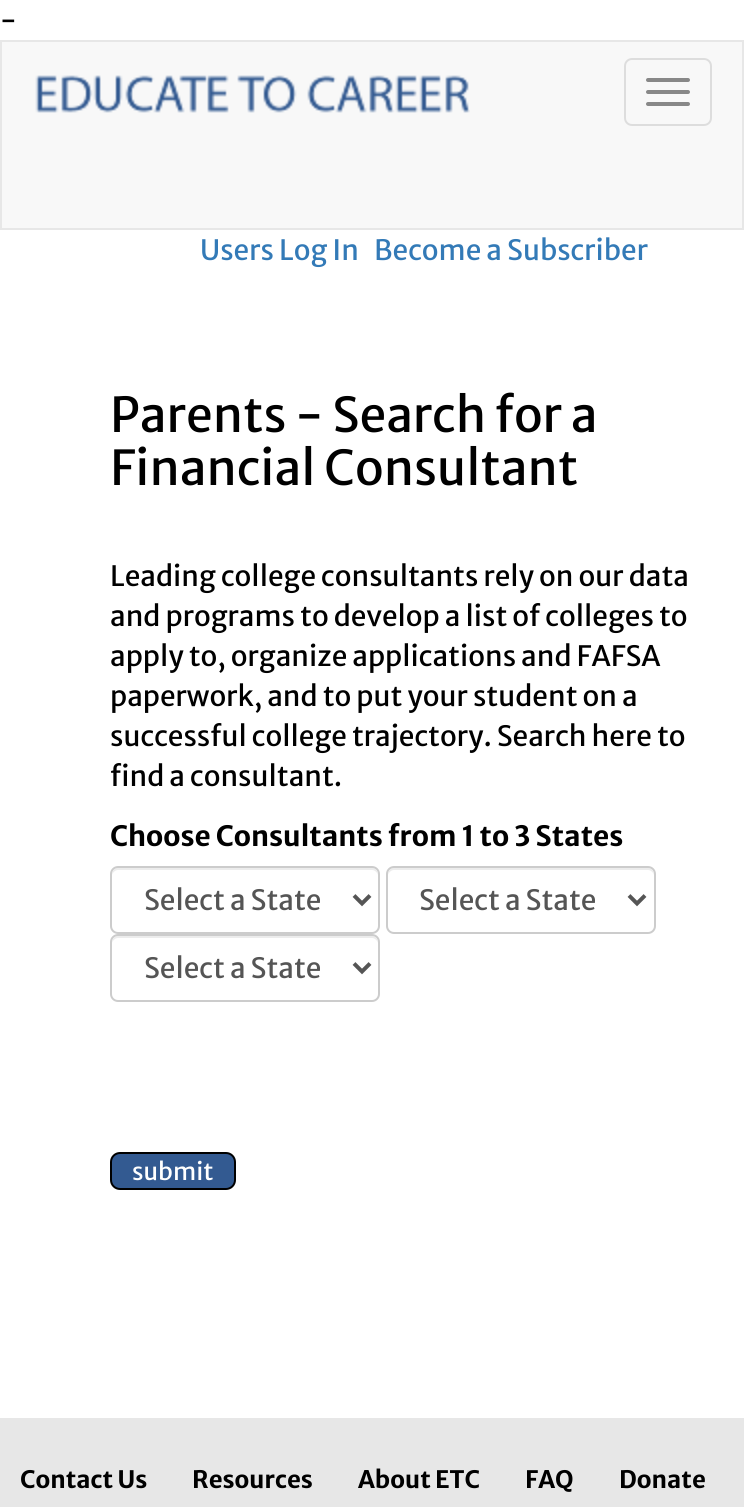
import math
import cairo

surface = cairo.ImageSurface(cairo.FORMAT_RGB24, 744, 1507)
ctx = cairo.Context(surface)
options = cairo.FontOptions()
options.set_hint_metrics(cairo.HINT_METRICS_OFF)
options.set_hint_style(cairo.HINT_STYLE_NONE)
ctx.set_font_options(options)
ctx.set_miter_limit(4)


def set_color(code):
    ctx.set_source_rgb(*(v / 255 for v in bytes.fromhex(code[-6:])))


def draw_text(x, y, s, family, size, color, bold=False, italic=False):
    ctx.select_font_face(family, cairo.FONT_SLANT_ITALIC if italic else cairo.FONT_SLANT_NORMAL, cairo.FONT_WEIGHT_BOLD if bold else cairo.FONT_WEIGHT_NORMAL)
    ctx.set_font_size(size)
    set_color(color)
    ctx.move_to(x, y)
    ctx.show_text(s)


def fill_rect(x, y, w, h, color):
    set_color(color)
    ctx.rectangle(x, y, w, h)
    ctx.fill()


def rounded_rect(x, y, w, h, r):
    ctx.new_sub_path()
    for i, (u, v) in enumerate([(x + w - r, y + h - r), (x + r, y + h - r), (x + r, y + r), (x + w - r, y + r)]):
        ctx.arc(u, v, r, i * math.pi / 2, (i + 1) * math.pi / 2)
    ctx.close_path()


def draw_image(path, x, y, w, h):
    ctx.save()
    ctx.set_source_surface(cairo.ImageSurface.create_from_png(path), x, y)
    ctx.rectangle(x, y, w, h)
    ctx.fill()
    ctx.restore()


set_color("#ffffff")
ctx.paint()
draw_text(0, 30, "-", "Merriweather Sans", 28, "#000000")
set_color("#f8f8f8")
ctx.rectangle(1, 41, 742, 188)
ctx.fill_preserve()
set_color("#e7e7e7")
ctx.stroke()
draw_image("assets/img1.png", 35, 75, 435, 38)
rounded_rect(625, 59, 86, 66, 7)
set_color("#dddddd")
ctx.stroke()
set_color("#888888")
rounded_rect(646, 78, 44, 4, 2)
ctx.fill()
rounded_rect(646, 90, 44, 4, 2)
ctx.fill()
rounded_rect(646, 102, 44, 4, 2)
ctx.fill()
draw_text(200, 260, "Users Log In", "Merriweather Sans", 28, "#337ab7")
draw_text(374, 260, "Become a Subscriber", "Merriweather Sans", 28, "#337ab7")
draw_text(110, 432, "Parents - Search for a", "Merriweather Sans", 48, "#000000")
draw_text(110, 485, "Financial Consultant", "Merriweather Sans", 48, "#000000")
draw_text(110, 586, "Leading college consultants rely on our data", "Merriweather Sans", 28, "#000000")
draw_text(110, 626, "and programs to develop a list of colleges to", "Merriweather Sans", 28, "#000000")
draw_text(110, 666, "apply to, organize applications and FAFSA", "Merriweather Sans", 28, "#000000")
draw_text(110, 706, "paperwork, and to put your student on a", "Merriweather Sans", 28, "#000000")
draw_text(110, 746, "successful college trajectory. Search here to", "Merriweather Sans", 28, "#000000")
draw_text(110, 786, "find a consultant.", "Merriweather Sans", 28, "#000000")
draw_text(110, 846, "Choose Consultants from 1 to 3 States", "Merriweather Sans", 28, "#000000", bold=True)
set_color("#ececec")
ctx.new_path()
ctx.move_to(118, 870)
ctx.line_to(372, 870)
ctx.curve_to(375, 870, 378, 873, 378, 876)
ctx.curve_to(378, 873, 377, 869, 373, 868)
ctx.line_to(117, 868)
ctx.curve_to(113, 869, 112, 873, 112, 876)
ctx.curve_to(112, 873, 115, 870, 118, 870)
ctx.close_path()
ctx.fill()
rounded_rect(111, 867, 268, 66, 7)
set_color("#cccccc")
ctx.stroke()
ctx.new_path()
ctx.move_to(354, 895.5)
ctx.line_to(362, 903.5)
ctx.line_to(370, 895.5)
set_color("#555555")
ctx.set_line_width(4)
ctx.stroke()
draw_text(144, 910, "Select a State", "Merriweather Sans", 28, "#555555")
set_color("#ececec")
ctx.new_path()
ctx.move_to(394, 870)
ctx.line_to(648, 870)
ctx.curve_to(651, 870, 654, 873, 654, 876)
ctx.curve_to(654, 873, 653, 869, 649, 868)
ctx.line_to(393, 868)
ctx.curve_to(389, 869, 388, 873, 388, 876)
ctx.curve_to(388, 873, 391, 870, 394, 870)
ctx.close_path()
ctx.fill()
rounded_rect(387, 867, 268, 66, 7)
set_color("#cccccc")
ctx.set_line_width(2)
ctx.stroke()
ctx.new_path()
ctx.move_to(629, 895.5)
ctx.line_to(637, 903.5)
ctx.line_to(645, 895.5)
set_color("#555555")
ctx.set_line_width(4)
ctx.stroke()
draw_text(419, 910, "Select a State", "Merriweather Sans", 28, "#555555")
set_color("#ececec")
ctx.new_path()
ctx.move_to(118, 938)
ctx.line_to(372, 938)
ctx.curve_to(375, 938, 378, 941, 378, 944)
ctx.curve_to(378, 941, 377, 937, 373, 936)
ctx.line_to(117, 936)
ctx.curve_to(113, 937, 112, 941, 112, 944)
ctx.curve_to(112, 941, 115, 938, 118, 938)
ctx.close_path()
ctx.fill()
rounded_rect(111, 935, 268, 66, 7)
set_color("#cccccc")
ctx.set_line_width(2)
ctx.stroke()
ctx.new_path()
ctx.move_to(354, 963.5)
ctx.line_to(362, 971.5)
ctx.line_to(370, 963.5)
set_color("#555555")
ctx.set_line_width(4)
ctx.stroke()
draw_text(144, 978, "Select a State", "Merriweather Sans", 28, "#555555")
set_color("#335a91")
rounded_rect(111, 1153, 124, 36, 9)
ctx.fill_preserve()
set_color("#000000")
ctx.set_line_width(2)
ctx.stroke()
draw_text(132, 1180, "submit", "Merriweather Sans", 24, "#ffffff")
fill_rect(0, 1418, 744, 89, "#e7e7e7")
draw_text(20, 1488, "Contact Us", "Merriweather Sans", 24, "#000000", bold=True)
draw_text(192, 1488, "Resources", "Merriweather Sans", 24, "#000000", bold=True)
draw_text(358, 1488, "About ETC", "Merriweather Sans", 24, "#000000", bold=True)
draw_text(525, 1488, "FAQ", "Merriweather Sans", 24, "#000000", bold=True)
draw_text(619, 1488, "Donate", "Merriweather Sans", 24, "#000000", bold=True)
surface.write_to_png("output.png")
